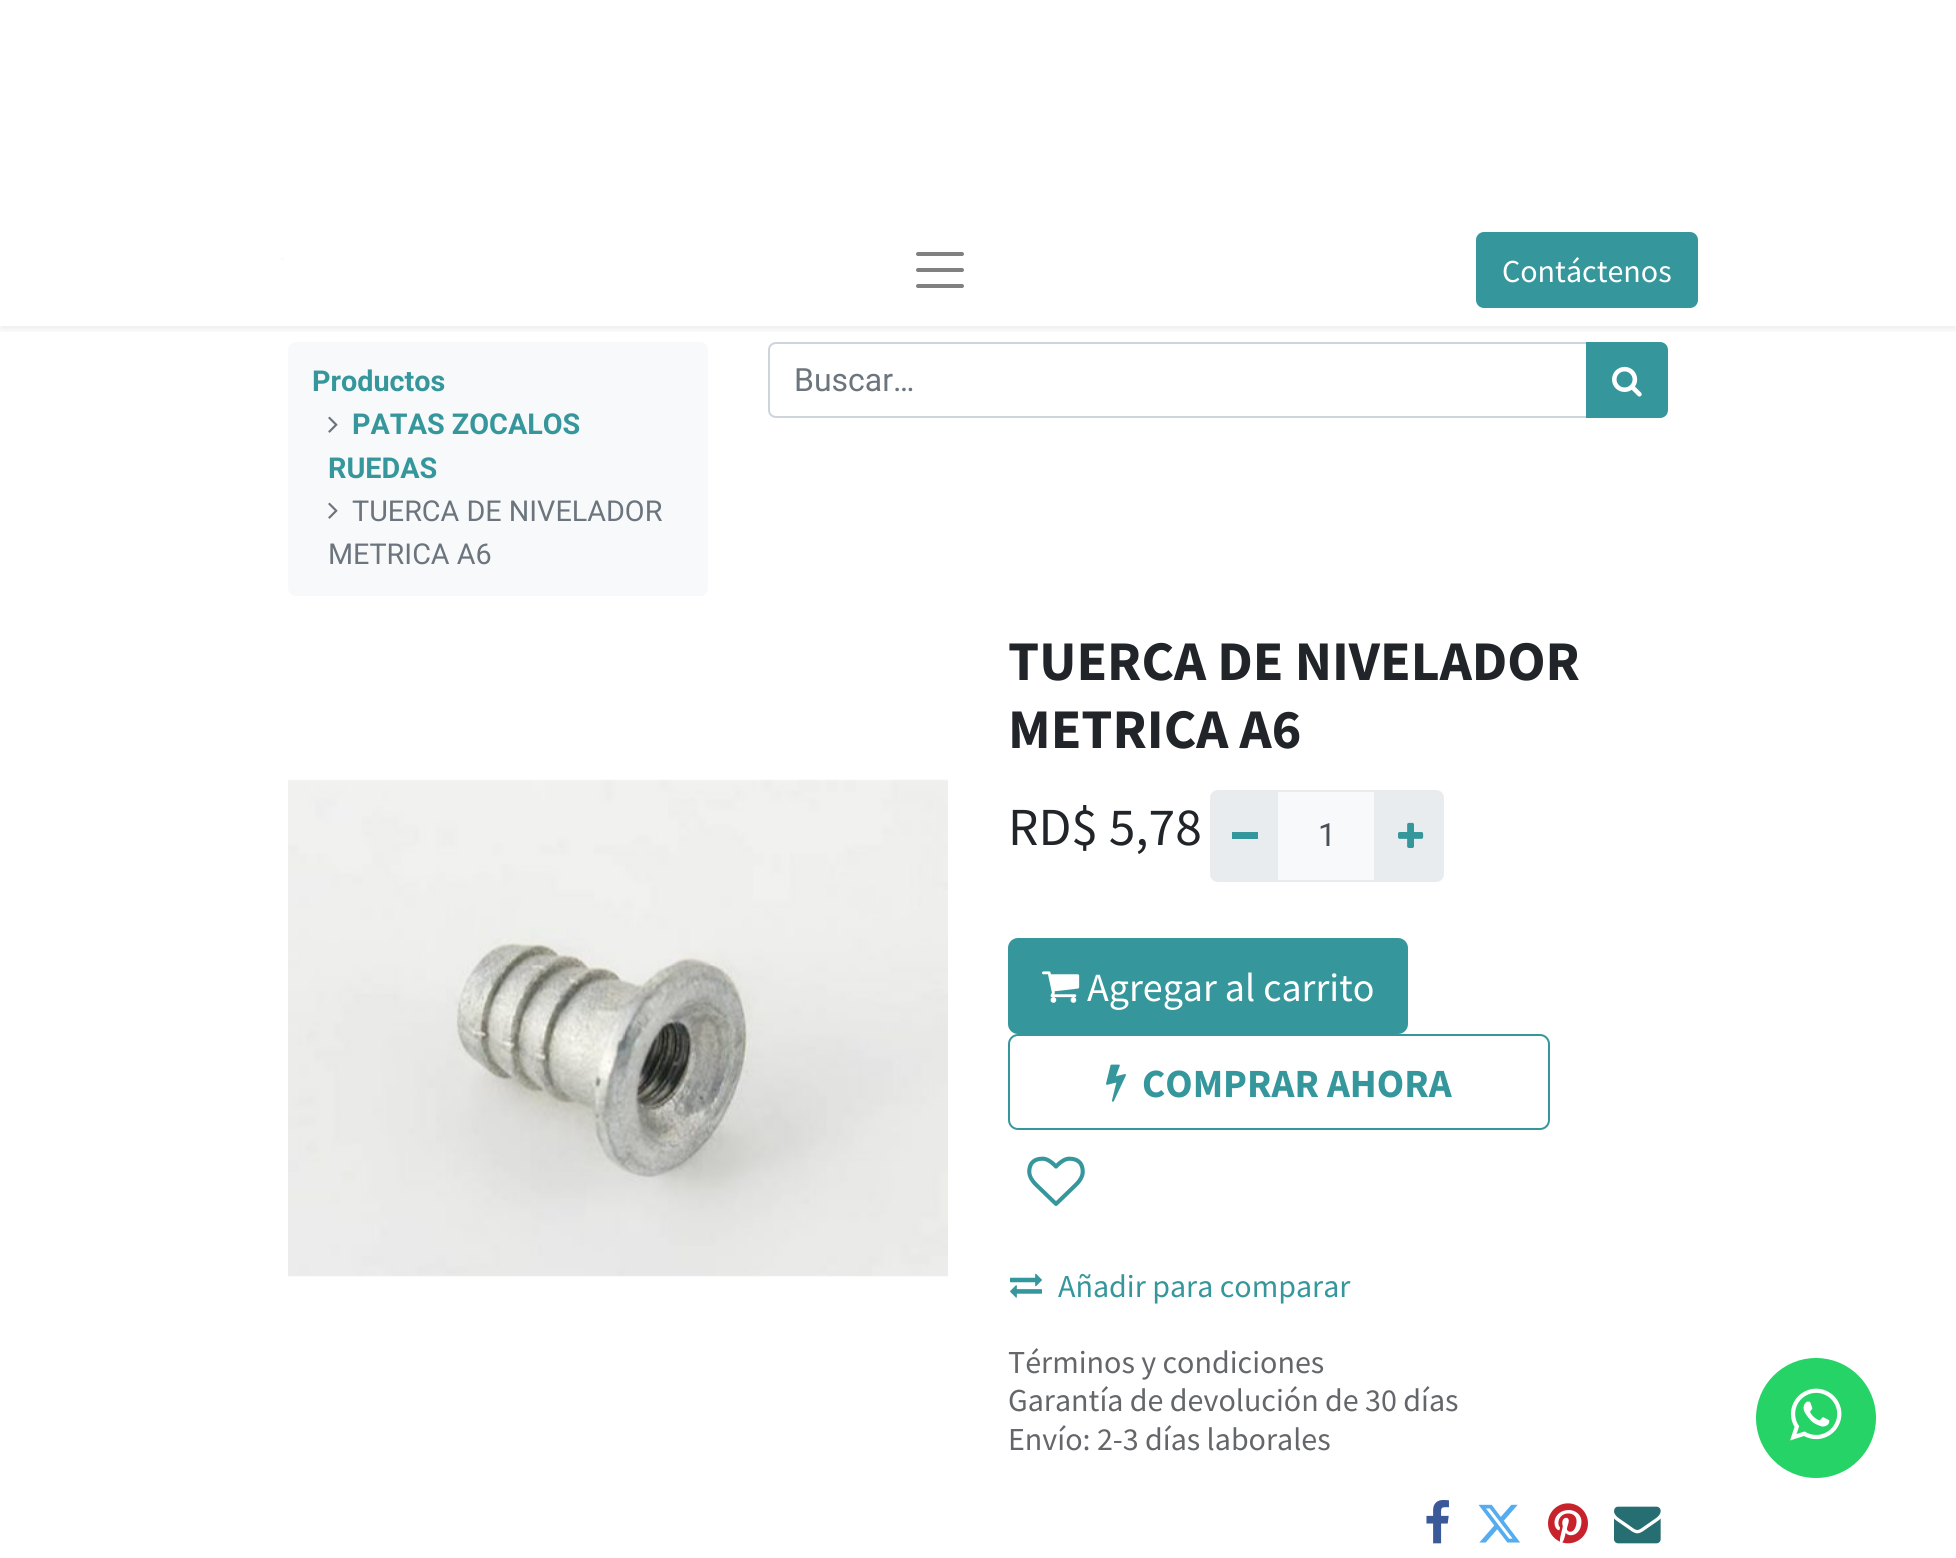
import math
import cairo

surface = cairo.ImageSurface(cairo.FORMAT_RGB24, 1956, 1558)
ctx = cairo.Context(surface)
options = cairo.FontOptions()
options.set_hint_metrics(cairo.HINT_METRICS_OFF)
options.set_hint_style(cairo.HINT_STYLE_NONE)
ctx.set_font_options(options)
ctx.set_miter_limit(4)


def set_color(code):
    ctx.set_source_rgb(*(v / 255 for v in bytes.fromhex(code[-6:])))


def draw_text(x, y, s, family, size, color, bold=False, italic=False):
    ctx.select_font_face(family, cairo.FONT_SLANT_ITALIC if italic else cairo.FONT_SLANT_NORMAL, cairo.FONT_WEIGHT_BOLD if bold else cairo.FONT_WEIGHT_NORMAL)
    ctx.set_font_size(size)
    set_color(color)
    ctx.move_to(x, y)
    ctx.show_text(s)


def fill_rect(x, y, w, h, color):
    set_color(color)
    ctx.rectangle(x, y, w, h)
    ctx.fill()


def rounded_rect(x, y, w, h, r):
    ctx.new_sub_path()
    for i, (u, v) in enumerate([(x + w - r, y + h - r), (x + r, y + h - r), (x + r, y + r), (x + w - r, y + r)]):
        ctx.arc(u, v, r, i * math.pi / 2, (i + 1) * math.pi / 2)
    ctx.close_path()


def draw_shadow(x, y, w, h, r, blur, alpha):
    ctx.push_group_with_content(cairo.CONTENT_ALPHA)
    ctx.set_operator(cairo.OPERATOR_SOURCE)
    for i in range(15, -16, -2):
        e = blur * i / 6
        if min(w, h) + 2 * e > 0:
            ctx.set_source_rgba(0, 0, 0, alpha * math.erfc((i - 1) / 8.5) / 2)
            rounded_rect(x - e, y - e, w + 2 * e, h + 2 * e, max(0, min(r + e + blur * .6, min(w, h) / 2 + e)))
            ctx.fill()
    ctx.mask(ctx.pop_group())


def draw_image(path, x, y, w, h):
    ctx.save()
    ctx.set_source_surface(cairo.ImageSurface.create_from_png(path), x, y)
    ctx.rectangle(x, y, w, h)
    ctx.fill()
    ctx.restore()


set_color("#ffffff")
ctx.paint()
set_color("#f8f9fa")
rounded_rect(288, 342, 420, 254, 8)
ctx.fill()
ctx.new_path()
ctx.move_to(776, 343)
ctx.line_to(1587, 343)
ctx.line_to(1587, 417)
ctx.line_to(776, 417)
ctx.curve_to(772, 417, 769, 414, 769, 410)
ctx.line_to(769, 350)
ctx.curve_to(769, 346, 772, 343, 776, 343)
ctx.close_path()
set_color("#ced4da")
ctx.stroke()
set_color("#35979c")
ctx.new_path()
ctx.move_to(1587, 343)
ctx.line_to(1660, 343)
ctx.curve_to(1664, 343, 1667, 346, 1667, 350)
ctx.line_to(1667, 410)
ctx.curve_to(1667, 414, 1664, 417, 1660, 417)
ctx.line_to(1587, 417)
ctx.close_path()
ctx.fill_preserve()
ctx.stroke()
ctx.save()
ctx.rectangle(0, 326, 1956, 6)
ctx.clip()
set_color("#000000")
draw_shadow(0, 218, 1956, 112, 0, 4, 0.07)
ctx.restore()
fill_rect(281, 258, 3, 2, "#fafafa")
ctx.new_path()
ctx.move_to(918, 254)
ctx.line_to(962, 254)
ctx.move_to(918, 270)
ctx.line_to(962, 270)
ctx.move_to(918, 286)
ctx.line_to(962, 286)
set_color("#808080")
ctx.set_line_width(4)
ctx.set_line_cap(cairo.LINE_CAP_ROUND)
ctx.stroke()
set_color("#35979c")
rounded_rect(1477, 233, 220, 74, 7)
ctx.fill_preserve()
ctx.set_line_width(2)
ctx.set_line_cap(cairo.LINE_CAP_BUTT)
ctx.stroke()
draw_text(1502, 282, "Contáctenos", "Source Sans Pro", 32, "#ffffff")
draw_text(312, 391, "Productos", "Roboto", 28.75, "#35979c", bold=True)
draw_image("assets/img1.png", 328, 416, 10, 17)
draw_text(352, 434, "PATAS ZOCALOS", "Roboto", 28.75, "#35979c", bold=True)
draw_text(328, 478, "RUEDAS", "Roboto", 28.75, "#35979c", bold=True)
draw_image("assets/img1.png", 328, 502, 10, 17)
draw_text(352, 521, "TUERCA DE NIVELADOR", "Roboto", 28.75, "#6c757d")
draw_text(328, 564, "METRICA A6", "Roboto", 28.75, "#6c757d")
draw_text(794, 391, "Buscar…", "Roboto", 32, "#6c757d")
draw_image("assets/img2.png", 1612, 366, 30, 31)
draw_image("assets/img3.png", 288, 779, 660, 498)
draw_text(1008, 680, "TUERCA DE NIVELADOR", "Source Sans Pro", 56, "#212529", bold=True)
draw_text(1008, 748, "METRICA A6", "Source Sans Pro", 56, "#212529", bold=True)
draw_text(1008, 845, "RD$ 5,78", "Source Sans Pro", 53.5, "#212529")
set_color("#f8f9fa")
ctx.rectangle(1277, 791, 98, 90)
ctx.fill_preserve()
set_color("#e9ecef")
ctx.stroke()
ctx.new_path()
ctx.move_to(1218, 790)
ctx.line_to(1278, 790)
ctx.line_to(1278, 882)
ctx.line_to(1218, 882)
ctx.curve_to(1213.5, 882, 1210, 878.5, 1210, 874)
ctx.line_to(1210, 798)
ctx.curve_to(1210, 793.5, 1213.5, 790, 1218, 790)
ctx.close_path()
ctx.fill()
fill_rect(1232, 832, 26, 7, "#35979c")
draw_text(1318, 846, "1", "Roboto", 32, "#495057")
set_color("#e9ecef")
ctx.new_path()
ctx.move_to(1374, 790)
ctx.line_to(1436, 790)
ctx.curve_to(1440.5, 790, 1444, 793.5, 1444, 798)
ctx.line_to(1444, 874)
ctx.curve_to(1444, 878.5, 1440.5, 882, 1436, 882)
ctx.line_to(1374, 882)
ctx.close_path()
ctx.fill()
draw_image("assets/img4.png", 1398, 822, 26, 26)
set_color("#35979c")
rounded_rect(1009, 939, 398, 94, 9)
ctx.fill_preserve()
ctx.stroke()
draw_image("assets/img5.png", 1042, 971, 38, 32)
draw_text(1087, 1001, "Agregar al carrito", "Source Sans Pro", 40, "#ffffff")
rounded_rect(1009, 1035, 540, 94, 9)
set_color("#35979c")
ctx.stroke()
draw_image("assets/img6.png", 1106, 1064, 20, 38)
draw_text(1142, 1097, "COMPRAR AHORA", "Source Sans Pro", 40, "#35979c", bold=True)
draw_image("assets/img7.png", 1027, 1156, 58, 50)
draw_image("assets/img8.png", 1010, 1273, 32, 25)
draw_text(1058, 1297, "Añadir para comparar", "Source Sans Pro", 32, "#35979c")
draw_text(1008, 1373, "Términos y condiciones", "Source Sans Pro", 32, "#646669")
draw_text(1008, 1411, "Garantía de devolución de 30 días", "Source Sans Pro", 32, "#646669")
draw_text(1008, 1450, "Envío: 2-3 días laborales", "Source Sans Pro", 32, "#646669")
draw_image("assets/img9.png", 1426, 1500, 23, 44)
draw_image("assets/img10.png", 1478, 1504, 42, 39)
draw_image("assets/img11.png", 1548, 1503, 40, 41)
draw_image("assets/img12.png", 1614, 1506, 47, 38)
set_color("#25d366")
ctx.arc(1816, 1418, 60, 0, 2 * math.pi)
ctx.fill()
draw_image("assets/img13.png", 1790, 1388, 52, 53)
surface.write_to_png("output.png")
